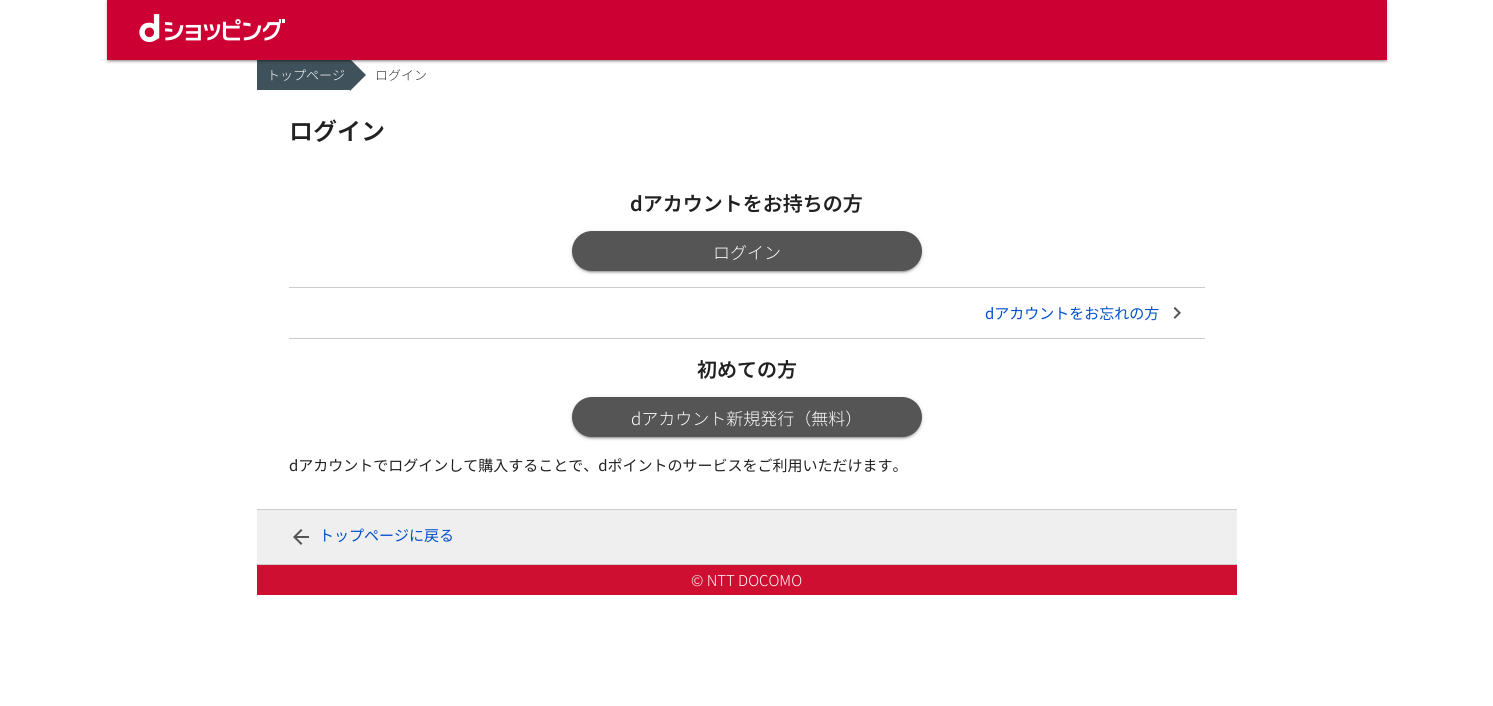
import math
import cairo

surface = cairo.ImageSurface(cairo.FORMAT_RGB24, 1493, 706)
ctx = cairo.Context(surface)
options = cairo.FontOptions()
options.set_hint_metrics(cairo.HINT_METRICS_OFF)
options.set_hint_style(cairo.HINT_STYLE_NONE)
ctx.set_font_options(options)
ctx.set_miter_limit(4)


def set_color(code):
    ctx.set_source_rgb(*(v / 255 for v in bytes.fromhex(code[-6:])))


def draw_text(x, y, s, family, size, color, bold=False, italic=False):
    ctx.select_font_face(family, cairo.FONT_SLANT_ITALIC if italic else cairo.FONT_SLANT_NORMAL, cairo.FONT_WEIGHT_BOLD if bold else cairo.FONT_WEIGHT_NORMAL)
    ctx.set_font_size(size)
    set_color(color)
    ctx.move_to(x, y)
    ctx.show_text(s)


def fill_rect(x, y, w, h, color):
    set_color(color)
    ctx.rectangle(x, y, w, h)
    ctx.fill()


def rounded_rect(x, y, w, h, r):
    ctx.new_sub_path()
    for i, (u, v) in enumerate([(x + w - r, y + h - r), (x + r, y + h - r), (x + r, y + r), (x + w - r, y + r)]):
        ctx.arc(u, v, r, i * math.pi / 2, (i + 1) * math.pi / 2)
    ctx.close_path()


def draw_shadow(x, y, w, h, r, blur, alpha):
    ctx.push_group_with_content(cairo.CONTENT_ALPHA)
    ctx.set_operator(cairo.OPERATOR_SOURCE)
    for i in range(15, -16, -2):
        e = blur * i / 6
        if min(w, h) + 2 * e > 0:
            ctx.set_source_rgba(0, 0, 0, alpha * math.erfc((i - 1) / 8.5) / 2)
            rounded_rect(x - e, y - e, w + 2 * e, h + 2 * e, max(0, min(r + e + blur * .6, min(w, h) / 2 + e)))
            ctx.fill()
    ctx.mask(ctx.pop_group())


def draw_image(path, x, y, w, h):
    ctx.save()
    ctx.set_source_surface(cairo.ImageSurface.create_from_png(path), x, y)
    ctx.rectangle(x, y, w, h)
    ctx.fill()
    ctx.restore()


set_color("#ffffff")
ctx.paint()
fill_rect(257, 60, 93, 30, "#3f525b")
ctx.new_path()
ctx.move_to(350, 91)
ctx.line_to(350, 59)
ctx.line_to(366, 75)
ctx.close_path()
ctx.fill()
set_color("#000000")
draw_shadow(109, 5, 1276, 56, 0, 0.5, 0.2)
draw_shadow(107, 1, 1280, 60, 0, 2.5, 0.12)
draw_shadow(107, 2, 1280, 60, 0, 1, 0.14)
fill_rect(107, 0, 1280, 60, "#cc0033")
draw_image("assets/img1.png", 139, 14, 146, 28)
draw_text(267, 80, "トップページ", "Noto Sans JP Light", 13, "#ffffff")
draw_text(375, 80, "ログイン", "Noto Sans JP Light", 13, "#333333")
draw_text(289, 140, "ログイン", "Noto Sans JP SemiBold", 24, "#212121")
draw_text(630, 211, "dアカウントをお持ちの方", "Noto Sans JP SemiBold", 20, "#212121")
set_color("#000000")
draw_shadow(574, 236, 346, 36, 18, 0.5, 0.2)
draw_shadow(572, 232, 350, 40, 20, 2.5, 0.12)
draw_shadow(572, 233, 350, 40, 20, 1, 0.14)
set_color("#555555")
rounded_rect(572, 231, 350, 40, 20)
ctx.fill()
draw_text(713, 259, "ログイン", "Noto Sans JP Light", 17, "#ffffff")
fill_rect(289, 287, 916, 1, "#cccccc")
fill_rect(289, 338, 916, 1, "#cccccc")
draw_text(985, 319, "dアカウントをお忘れの方", "Noto Sans JP", 15, "#024fcc")
draw_image("assets/img2.png", 1173, 307, 8, 12)
draw_text(697, 377, "初めての方", "Noto Sans JP SemiBold", 20, "#212121")
set_color("#000000")
draw_shadow(574, 402, 346, 36, 18, 0.5, 0.2)
draw_shadow(572, 398, 350, 40, 20, 2.5, 0.12)
draw_shadow(572, 399, 350, 40, 20, 1, 0.14)
set_color("#555555")
rounded_rect(572, 397, 350, 40, 20)
ctx.fill()
draw_text(631, 425, "dアカウント新規発行（無料）", "Noto Sans JP Light", 17, "#ffffff")
draw_text(289, 471, "dアカウントでログインして購入することで、dポイントのサービスをご利用いただけます。", "Noto Sans JP", 15, "#212121")
fill_rect(257, 509, 980, 1, "#cccccc")
fill_rect(257, 564, 980, 1, "#cccccc")
fill_rect(257, 510, 980, 54, "#efefef")
draw_image("assets/img3.png", 293, 529, 16, 16)
draw_text(319, 541, "トップページに戻る", "Noto Sans JP", 15, "#024fcc")
fill_rect(257, 565, 980, 30, "#cf0f31")
draw_text(691, 586, "© NTT DOCOMO", "Noto Sans JP Light", 15, "#ffffff")
surface.write_to_png("output.png")
